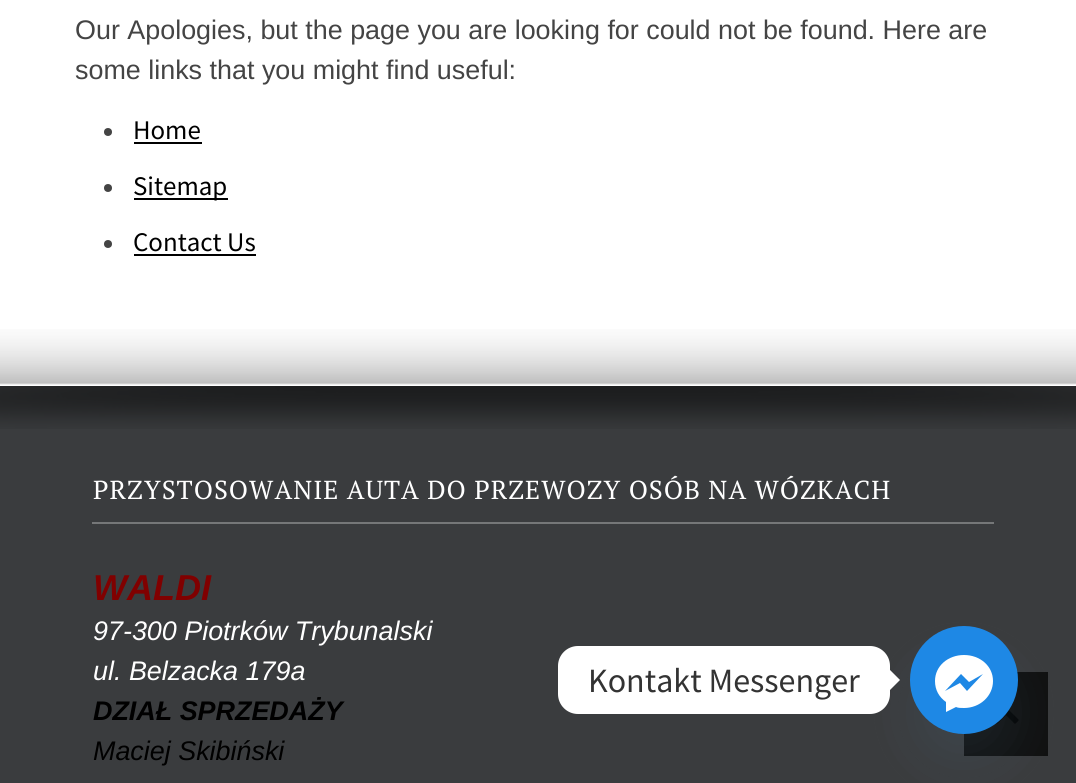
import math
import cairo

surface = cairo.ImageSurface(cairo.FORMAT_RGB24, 1076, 783)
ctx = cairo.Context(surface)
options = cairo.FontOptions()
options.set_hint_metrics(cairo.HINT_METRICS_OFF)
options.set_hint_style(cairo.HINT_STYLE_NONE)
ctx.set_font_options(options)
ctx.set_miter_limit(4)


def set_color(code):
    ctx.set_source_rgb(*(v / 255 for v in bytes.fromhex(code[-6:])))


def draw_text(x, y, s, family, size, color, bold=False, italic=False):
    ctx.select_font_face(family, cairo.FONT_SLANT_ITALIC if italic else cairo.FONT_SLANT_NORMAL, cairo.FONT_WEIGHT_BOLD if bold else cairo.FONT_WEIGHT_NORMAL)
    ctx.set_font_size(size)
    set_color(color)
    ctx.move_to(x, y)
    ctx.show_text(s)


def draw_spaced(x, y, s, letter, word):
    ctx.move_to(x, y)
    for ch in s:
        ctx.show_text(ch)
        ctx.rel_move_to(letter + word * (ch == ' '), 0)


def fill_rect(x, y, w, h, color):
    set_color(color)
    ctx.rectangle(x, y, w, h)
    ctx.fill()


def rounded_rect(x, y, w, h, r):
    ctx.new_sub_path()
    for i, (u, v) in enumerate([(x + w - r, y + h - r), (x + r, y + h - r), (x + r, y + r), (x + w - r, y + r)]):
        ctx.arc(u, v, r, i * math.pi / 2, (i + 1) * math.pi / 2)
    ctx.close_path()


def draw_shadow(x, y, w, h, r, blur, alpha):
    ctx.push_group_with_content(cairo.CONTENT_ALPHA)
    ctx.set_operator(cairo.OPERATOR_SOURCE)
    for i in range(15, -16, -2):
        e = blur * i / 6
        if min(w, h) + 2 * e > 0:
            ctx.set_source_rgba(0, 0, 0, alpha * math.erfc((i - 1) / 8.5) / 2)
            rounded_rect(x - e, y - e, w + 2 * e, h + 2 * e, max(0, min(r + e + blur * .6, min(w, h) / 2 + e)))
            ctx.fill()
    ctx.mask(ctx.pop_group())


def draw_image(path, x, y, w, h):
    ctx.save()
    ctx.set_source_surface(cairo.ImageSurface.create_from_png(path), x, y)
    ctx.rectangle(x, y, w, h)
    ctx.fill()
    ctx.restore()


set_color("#ffffff")
ctx.paint()
draw_text(75, 39, "Our Apologies, but the page you are looking for could not be found. Here are", "Liberation Sans", 26.9, "#444444")
draw_text(75, 79, "some links that you might find useful:", "Liberation Sans", 26.9, "#444444")
ctx.new_path()
ctx.arc(108, 132, 4, 0, 2 * math.pi)
ctx.fill()
draw_text(133, 139, "Home", "Source Sans Pro", 26.9, "#000000")
fill_rect(134, 142, 68, 2, "#000000")
set_color("#444444")
ctx.new_path()
ctx.arc(108, 188, 4, 0, 2 * math.pi)
ctx.fill()
fill_rect(134, 198, 94, 2, "#000000")
draw_text(133, 195, "Sitemap", "Source Sans Pro", 26.9, "#000000")
set_color("#444444")
ctx.new_path()
ctx.arc(108, 244, 4, 0, 2 * math.pi)
ctx.fill()
draw_text(133, 251, "Contact Us", "Source Sans Pro", 26.9, "#000000")
fill_rect(134, 254, 122, 2, "#000000")
draw_image("assets/img1.png", 0, 329, 1076, 56)
fill_rect(0, 386, 1076, 397, "#3a3c3e")
draw_image("assets/img2.png", 0, 386, 1076, 43)
fill_rect(92, 522, 902, 2, "#757778")
ctx.select_font_face("PT Serif")
ctx.set_font_size(26)
set_color("#ffffff")
draw_spaced(93, 499, "PRZYSTOSOWANIE AUTA DO PRZEWOZY OSÓB NA WÓZKACH", 1, 0)
draw_text(93, 600, "WALDI", "Liberation Sans", 36, "#800000", bold=True, italic=True)
draw_text(93, 640, "97-300 Piotrków Trybunalski", "Liberation Sans", 26.9, "#ffffff", italic=True)
draw_text(93, 680, "ul. Belzacka 179a", "Liberation Sans", 26.9, "#ffffff", italic=True)
draw_text(93, 720, "DZIAŁ SPRZEDAŻY", "Liberation Sans", 26.9, "#000000", bold=True, italic=True)
draw_text(93, 760, "Maciej Skibiński", "Liberation Sans", 26.9, "#000000", italic=True)
fill_rect(964, 672, 84, 84, "#101111")
draw_image("assets/img3.png", 996, 709, 23, 15)
set_color("#49687e")
draw_shadow(910, 658, 108, 108, 54, 24, 0.16)
set_color("#ffffff")
rounded_rect(558, 646, 332, 68, 20)
ctx.fill()
draw_text(588, 692, "Kontakt Messenger", "Source Sans Pro", 34, "#333333")
set_color("#ffffff")
ctx.new_path()
ctx.move_to(890, 690)
ctx.line_to(890, 670)
ctx.line_to(900, 680)
ctx.close_path()
ctx.fill()
set_color("#1e88e5")
ctx.arc(964, 680, 54, 0, 2 * math.pi)
ctx.fill()
set_color("#ffffff")
ctx.set_fill_rule(cairo.FILL_RULE_EVEN_ODD)
ctx.new_path()
ctx.move_to(935, 681)
ctx.curve_to(935, 666, 948, 655, 964, 655)
ctx.curve_to(980, 655, 993, 666, 993, 681)
ctx.curve_to(993, 696, 980, 708, 964, 708)
ctx.curve_to(961, 708, 958, 708, 956, 707)
ctx.line_to(946, 712)
ctx.line_to(946, 702)
ctx.curve_to(939, 697, 935, 690, 935, 681)
ctx.close_path()
ctx.move_to(960, 683)
ctx.line_to(967, 691)
ctx.line_to(983, 674)
ctx.line_to(969, 682)
ctx.line_to(961, 674)
ctx.line_to(945, 691)
ctx.close_path()
ctx.fill()
surface.write_to_png("output.png")
